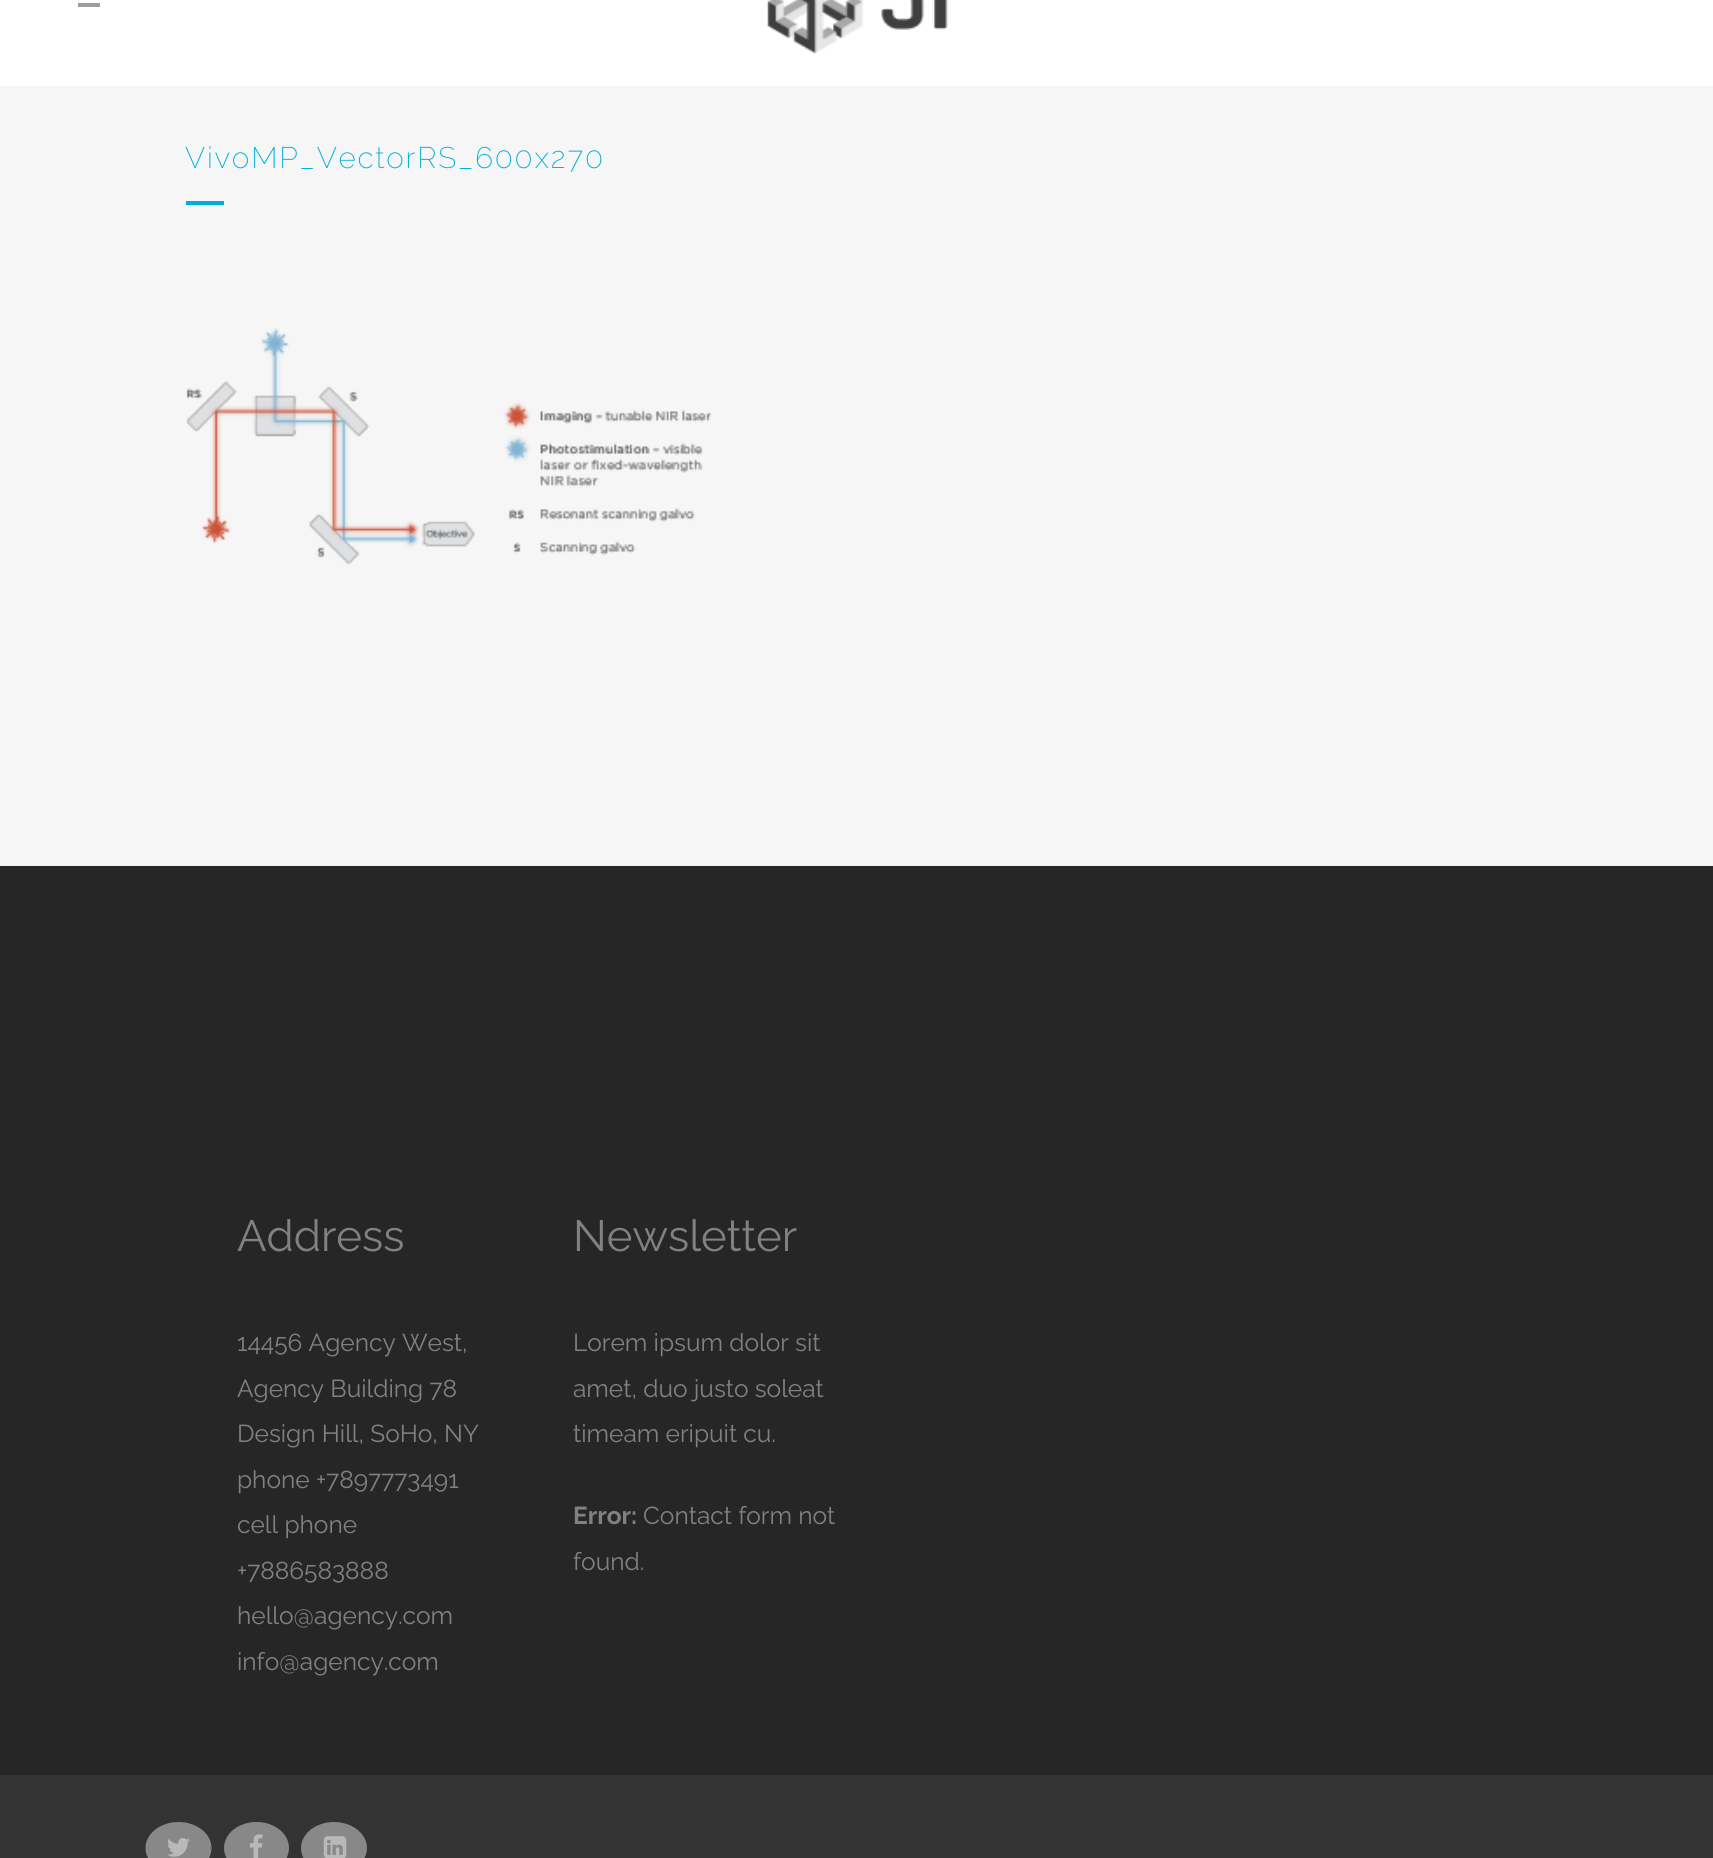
import math
import cairo

surface = cairo.ImageSurface(cairo.FORMAT_RGB24, 1713, 1858)
ctx = cairo.Context(surface)
options = cairo.FontOptions()
options.set_hint_metrics(cairo.HINT_METRICS_OFF)
options.set_hint_style(cairo.HINT_STYLE_NONE)
ctx.set_font_options(options)
ctx.set_miter_limit(4)


def set_color(code):
    ctx.set_source_rgb(*(v / 255 for v in bytes.fromhex(code[-6:])))


def draw_text(x, y, s, family, size, color, bold=False, italic=False):
    ctx.select_font_face(family, cairo.FONT_SLANT_ITALIC if italic else cairo.FONT_SLANT_NORMAL, cairo.FONT_WEIGHT_BOLD if bold else cairo.FONT_WEIGHT_NORMAL)
    ctx.set_font_size(size)
    set_color(color)
    ctx.move_to(x, y)
    ctx.show_text(s)


def draw_spaced(x, y, s, letter, word):
    ctx.move_to(x, y)
    for ch in s:
        ctx.show_text(ch)
        ctx.rel_move_to(letter + word * (ch == ' '), 0)


def fill_rect(x, y, w, h, color):
    set_color(color)
    ctx.rectangle(x, y, w, h)
    ctx.fill()


def draw_image(path, x, y, w, h):
    ctx.save()
    ctx.set_source_surface(cairo.ImageSurface.create_from_png(path), x, y)
    ctx.rectangle(x, y, w, h)
    ctx.fill()
    ctx.restore()


set_color("#f6f6f6")
ctx.paint()
fill_rect(0, 0, 1713, 86, "#ffffff")
fill_rect(78, 3, 22, 4, "#9d9d9d")
draw_image("assets/img1.png", 767, 0, 182, 54)
ctx.select_font_face("Raleway ExtraLight")
ctx.set_font_size(29.75)
set_color("#00afd8")
draw_spaced(185, 168, "VivoMP_VectorRS_600x270", 1.75, 0)
fill_rect(186, 201, 38, 4, "#00afd8")
draw_image("assets/img2.png", 186, 328, 525, 236)
fill_rect(0, 866, 1713, 909, "#262626")
draw_text(237, 1251, "Address", "Raleway", 43.75, "#818181")
draw_text(237, 1351, "14456 Agency West,", "Raleway", 24.5, "#818181")
draw_text(237, 1397, "Agency Building 78", "Raleway", 24.5, "#818181")
draw_text(237, 1442, "Design Hill, SoHo, NY", "Raleway", 24.5, "#818181")
draw_text(237, 1488, "phone +7897773491", "Raleway", 24.5, "#818181")
draw_text(237, 1533, "cell phone", "Raleway", 24.5, "#818181")
draw_text(237, 1579, "+7886583888", "Raleway", 24.5, "#818181")
draw_text(237, 1624, "hello@agency.com", "Raleway", 24.5, "#818181")
draw_text(237, 1670, "info@agency.com", "Raleway", 24.5, "#818181")
draw_text(573, 1251, "Newsletter", "Raleway", 43.75, "#818181")
draw_text(573, 1351, "Lorem ipsum dolor sit", "Raleway", 24.5, "#818181")
draw_text(573, 1397, "amet, duo justo soleat", "Raleway", 24.5, "#818181")
draw_text(573, 1442, "timeam eripuit cu.", "Raleway", 24.5, "#818181")
draw_text(573, 1524, "Error:", "Raleway", 24.5, "#818181", bold=True)
draw_text(643, 1524, "Contact form not", "Raleway", 24.5, "#818181")
draw_text(573, 1570, "found.", "Raleway", 24.5, "#818181")
fill_rect(0, 1775, 1713, 83, "#333333")
set_color("#888888")
ctx.new_path()
ctx.move_to(178.5, 1822)
ctx.curve_to(196.5, 1822, 211.5, 1833.5, 211.5, 1848)
ctx.curve_to(211.5, 1862.5, 196.5, 1874, 178.5, 1874)
ctx.curve_to(160.5, 1874, 145.5, 1862.5, 145.5, 1848)
ctx.curve_to(145.5, 1833.5, 160.5, 1822, 178.5, 1822)
ctx.close_path()
ctx.fill()
draw_image("assets/img3.png", 167, 1838, 23, 19)
ctx.new_path()
ctx.move_to(256.5, 1822)
ctx.curve_to(274.5, 1822, 289, 1833.5, 289, 1848)
ctx.curve_to(289, 1862.5, 274.5, 1874, 256.5, 1874)
ctx.curve_to(238.5, 1874, 224, 1862.5, 224, 1848)
ctx.curve_to(224, 1833.5, 238.5, 1822, 256.5, 1822)
ctx.close_path()
ctx.fill()
draw_image("assets/img4.png", 249, 1834, 14, 24)
ctx.new_path()
ctx.move_to(334, 1822)
ctx.curve_to(352, 1822, 367, 1833.5, 367, 1848)
ctx.curve_to(367, 1862.5, 352, 1874, 334, 1874)
ctx.curve_to(316, 1874, 301, 1862.5, 301, 1848)
ctx.curve_to(301, 1833.5, 316, 1822, 334, 1822)
ctx.close_path()
ctx.fill()
draw_image("assets/img5.png", 323, 1836, 24, 22)
surface.write_to_png("output.png")
